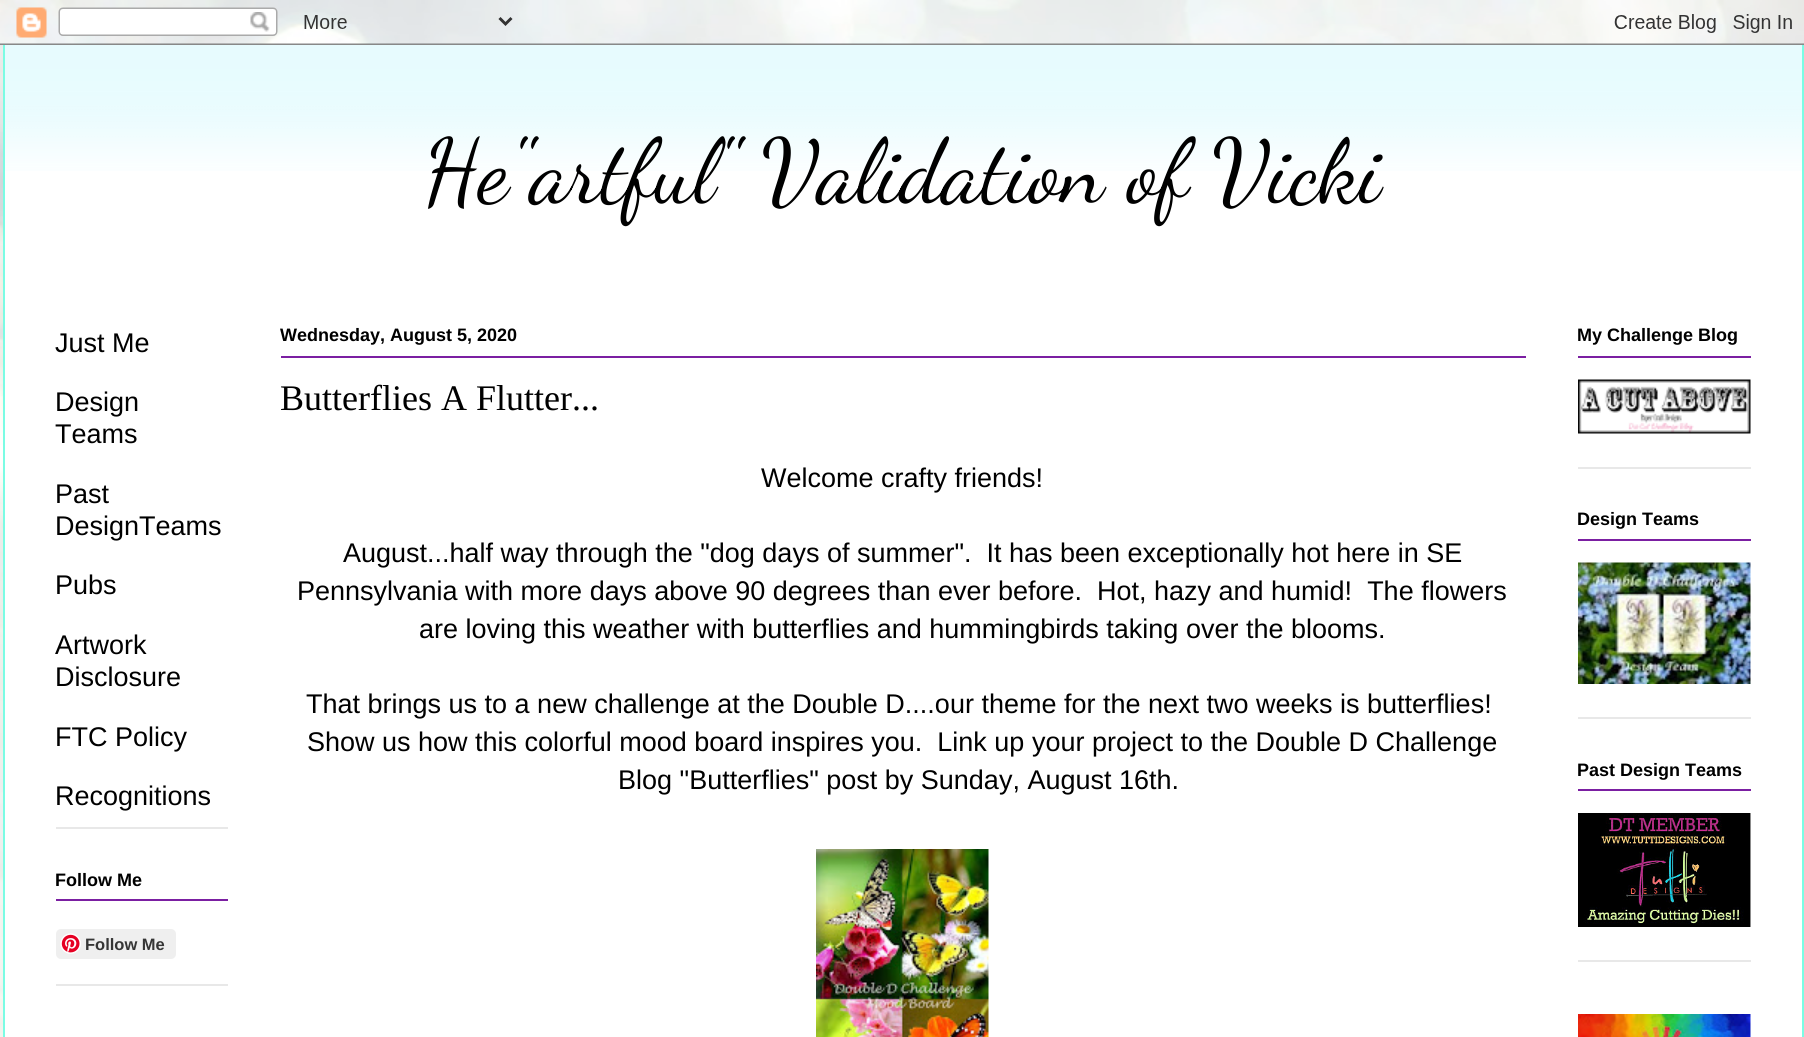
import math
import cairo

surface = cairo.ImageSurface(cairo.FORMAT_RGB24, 1804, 1037)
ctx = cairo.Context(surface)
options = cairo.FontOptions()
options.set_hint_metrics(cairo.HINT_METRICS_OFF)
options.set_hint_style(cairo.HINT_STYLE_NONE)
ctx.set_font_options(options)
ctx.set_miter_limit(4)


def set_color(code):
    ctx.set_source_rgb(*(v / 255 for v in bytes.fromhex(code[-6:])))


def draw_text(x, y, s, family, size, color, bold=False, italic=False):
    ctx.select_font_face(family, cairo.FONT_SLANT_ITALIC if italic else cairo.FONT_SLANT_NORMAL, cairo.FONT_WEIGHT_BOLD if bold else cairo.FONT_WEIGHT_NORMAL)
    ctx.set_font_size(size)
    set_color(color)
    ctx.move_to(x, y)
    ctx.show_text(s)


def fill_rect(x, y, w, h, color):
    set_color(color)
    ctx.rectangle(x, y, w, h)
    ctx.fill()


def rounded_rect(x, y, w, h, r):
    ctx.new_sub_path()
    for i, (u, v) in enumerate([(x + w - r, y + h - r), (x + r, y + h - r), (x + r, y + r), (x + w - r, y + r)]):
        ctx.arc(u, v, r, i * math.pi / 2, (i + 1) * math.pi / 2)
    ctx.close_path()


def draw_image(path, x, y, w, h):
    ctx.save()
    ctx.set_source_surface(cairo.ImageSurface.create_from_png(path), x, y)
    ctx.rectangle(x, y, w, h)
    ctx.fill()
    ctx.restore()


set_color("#ffffff")
ctx.paint()
draw_image("assets/img1.png", 0, 0, 1804, 1037)
draw_image("assets/img2.png", 0, 0, 1804, 45)
fill_rect(5, 45, 1797, 992, "#ffffff")
draw_image("assets/img3.png", 5, 45, 1797, 126)
fill_rect(1802, 45, 2, 992, "#7bfce4")
fill_rect(3, 45, 2, 992, "#7bfce4")
draw_text(423, 201, "He\"artful\" Validation of Vicki", "Dancing Script", 90, "#000000")
fill_rect(56, 827, 172, 2, "#e8e8e8")
draw_text(55, 352, "Just Me", "Liberation Sans", 27, "#000000")
draw_text(55, 411, "Design", "Liberation Sans", 27, "#000000")
draw_text(55, 443, "Teams", "Liberation Sans", 27, "#000000")
draw_text(55, 503, "Past", "Liberation Sans", 27, "#000000")
draw_text(55, 535, "DesignTeams", "Liberation Sans", 27, "#000000")
draw_text(55, 594, "Pubs", "Liberation Sans", 27, "#000000")
draw_text(55, 654, "Artwork", "Liberation Sans", 27, "#000000")
draw_text(55, 686, "Disclosure", "Liberation Sans", 27, "#000000")
draw_text(55, 746, "FTC Policy", "Liberation Sans", 27, "#000000")
draw_text(55, 805, "Recognitions", "Liberation Sans", 27, "#000000")
fill_rect(56, 984, 172, 2, "#e8e8e8")
fill_rect(56, 899, 172, 2, "#7b1fa2")
draw_text(55, 886, "Follow Me", "Liberation Sans", 18, "#000000", bold=True)
set_color("#efefef")
rounded_rect(56, 929, 120, 30, 5)
ctx.fill()
draw_image("assets/img4.png", 60, 933, 21, 21)
draw_text(85, 950, "Follow Me", "Liberation Sans", 16.5, "#363636", bold=True)
fill_rect(281, 356, 1245, 2, "#7b1fa2")
draw_text(280, 341, "Wednesday, August 5, 2020", "Liberation Sans", 18, "#000000", bold=True)
draw_text(280, 410, "Butterflies A Flutter...", "Liberation Serif", 36, "#000000")
draw_text(761, 487, "Welcome crafty friends!", "Liberation Sans", 27, "#000000")
draw_text(343, 562, "August...half way through the \"dog days of summer\".  It has been exceptionally hot here in SE", "Liberation Sans", 27, "#000000")
draw_text(297, 600, "Pennsylvania with more days above 90 degrees than ever before.  Hot, hazy and humid!  The flowers", "Liberation Sans", 27, "#000000")
draw_text(419, 638, "are loving this weather with butterflies and hummingbirds taking over the blooms.", "Liberation Sans", 27, "#000000")
draw_text(306, 713, "That brings us to a new challenge at the Double D....our theme for the next two weeks is butterflies!", "Liberation Sans", 27, "#000000")
draw_text(307, 751, "Show us how this colorful mood board inspires you.  Link up your project to the Double D Challenge", "Liberation Sans", 27, "#000000")
draw_text(618, 789, "Blog \"Butterflies\" post by Sunday, August 16th.", "Liberation Sans", 27, "#000000")
draw_image("assets/img5.png", 816, 849, 173, 188)
fill_rect(1578, 467, 173, 2, "#e8e8e8")
fill_rect(1578, 356, 173, 2, "#7b1fa2")
draw_text(1577, 341, "My Challenge Blog", "Liberation Sans", 18, "#000000", bold=True)
draw_image("assets/img6.png", 1578, 379, 173, 55)
fill_rect(1578, 717, 173, 2, "#e8e8e8")
fill_rect(1578, 539, 173, 2, "#7b1fa2")
draw_text(1577, 525, "Design Teams", "Liberation Sans", 18, "#000000", bold=True)
draw_image("assets/img7.png", 1578, 562, 173, 122)
fill_rect(1578, 960, 173, 2, "#e8e8e8")
fill_rect(1578, 789, 173, 2, "#7b1fa2")
draw_text(1577, 776, "Past Design Teams", "Liberation Sans", 18, "#000000", bold=True)
draw_image("assets/img8.png", 1578, 813, 173, 114)
draw_image("assets/img9.png", 1578, 1014, 173, 23)
surface.write_to_png("output.png")
